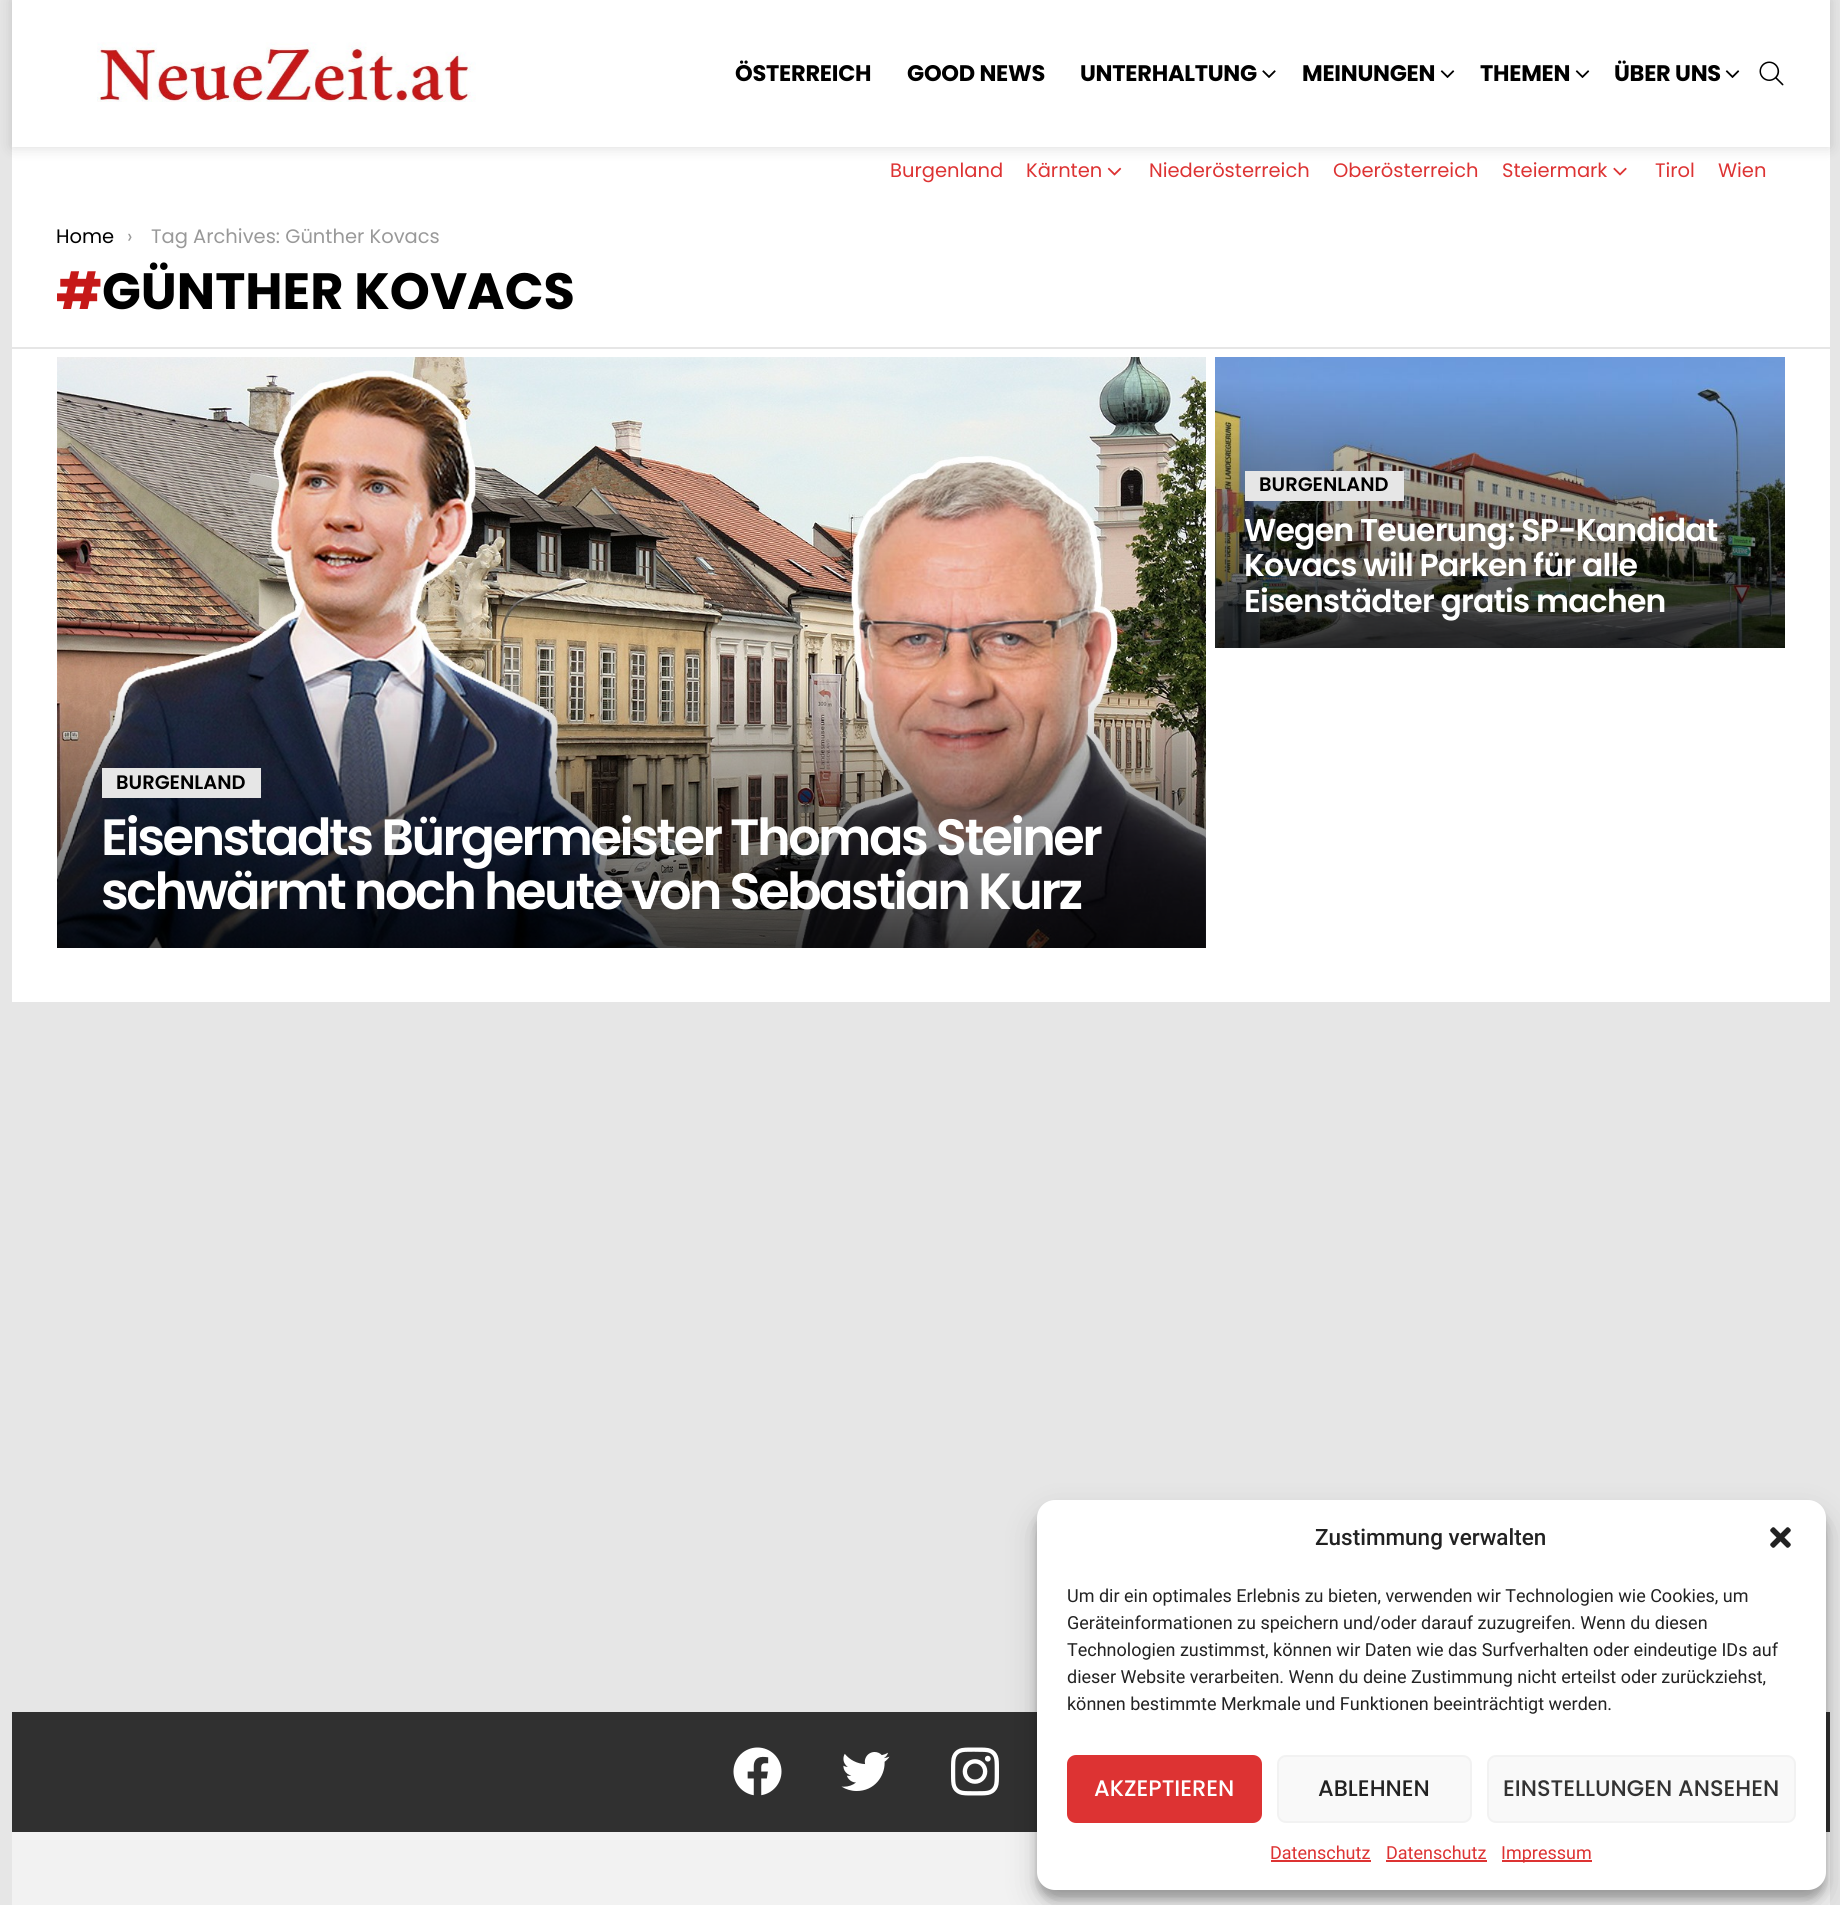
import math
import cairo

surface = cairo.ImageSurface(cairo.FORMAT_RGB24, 1840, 1905)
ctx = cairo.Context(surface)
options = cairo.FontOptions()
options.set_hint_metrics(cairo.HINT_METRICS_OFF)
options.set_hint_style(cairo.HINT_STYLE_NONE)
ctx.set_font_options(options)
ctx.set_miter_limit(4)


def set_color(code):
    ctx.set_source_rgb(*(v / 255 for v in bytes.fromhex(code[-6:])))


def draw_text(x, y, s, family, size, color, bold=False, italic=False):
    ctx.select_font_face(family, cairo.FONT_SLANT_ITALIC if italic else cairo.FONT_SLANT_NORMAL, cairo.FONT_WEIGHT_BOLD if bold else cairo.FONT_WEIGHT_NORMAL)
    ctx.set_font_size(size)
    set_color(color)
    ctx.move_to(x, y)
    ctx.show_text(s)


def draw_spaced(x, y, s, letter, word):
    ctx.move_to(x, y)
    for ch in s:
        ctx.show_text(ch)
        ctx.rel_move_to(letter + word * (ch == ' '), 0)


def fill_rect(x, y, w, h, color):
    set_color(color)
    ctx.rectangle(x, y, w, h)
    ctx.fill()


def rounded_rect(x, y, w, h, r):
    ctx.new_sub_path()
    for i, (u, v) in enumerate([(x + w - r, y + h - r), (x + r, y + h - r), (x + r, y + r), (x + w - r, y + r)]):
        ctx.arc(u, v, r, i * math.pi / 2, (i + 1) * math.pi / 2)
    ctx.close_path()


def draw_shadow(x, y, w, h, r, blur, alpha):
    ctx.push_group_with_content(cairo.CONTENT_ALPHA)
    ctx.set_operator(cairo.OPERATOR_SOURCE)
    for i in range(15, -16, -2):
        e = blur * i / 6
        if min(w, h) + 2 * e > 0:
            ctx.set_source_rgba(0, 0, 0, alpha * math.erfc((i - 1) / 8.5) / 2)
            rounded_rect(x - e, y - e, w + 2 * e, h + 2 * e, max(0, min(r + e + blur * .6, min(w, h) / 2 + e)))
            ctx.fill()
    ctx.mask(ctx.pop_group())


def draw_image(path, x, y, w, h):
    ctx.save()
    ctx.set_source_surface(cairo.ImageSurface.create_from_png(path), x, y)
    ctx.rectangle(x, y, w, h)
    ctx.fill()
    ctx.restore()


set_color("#e6e6e6")
ctx.paint()
fill_rect(12, 147, 1818, 200, "#ffffff")
draw_image("assets/img5.png", 1107, 167, 15, 9)
draw_image("assets/img6.png", 1613, 167, 14, 9)
set_color("#000000")
draw_shadow(12, 0, 1818, 147, 0, 7.5, 0.15)
fill_rect(12, 0, 1818, 147, "#ffffff")
draw_image("assets/img1.png", 97, 42, 379, 60)
ctx.select_font_face("Poppins", cairo.FONT_SLANT_NORMAL, cairo.FONT_WEIGHT_BOLD)
ctx.set_font_size(22.5)
set_color("#000000")
draw_spaced(735, 81, "ÖSTERREICH", -0.25, 0)
draw_spaced(907, 81, "GOOD NEWS", -0.25, 0)
draw_spaced(1080, 81, "UNTERHALTUNG", -0.25, 0)
draw_image("assets/img2.png", 1262, 70, 14, 8)
draw_spaced(1302, 81, "MEINUNGEN", -0.25, 0)
draw_image("assets/img3.png", 1440, 70, 15, 8)
draw_spaced(1480, 81, "THEMEN", -0.25, 0)
draw_image("assets/img3.png", 1575, 70, 15, 8)
draw_spaced(1614, 81, "ÜBER UNS", -0.25, 0)
draw_image("assets/img3.png", 1725, 70, 15, 8)
draw_image("assets/img4.png", 1759, 61, 25, 25)
draw_text(890, 177, "Burgenland", "Poppins", 19.5, "#dd3333")
draw_text(1026, 177, "Kärnten", "Poppins", 19.5, "#dd3333")
draw_text(1149, 177, "Niederösterreich", "Poppins", 19.5, "#dd3333")
draw_text(1333, 177, "Oberösterreich", "Poppins", 19.5, "#dd3333")
draw_text(1502, 177, "Steiermark", "Poppins", 19.5, "#dd3333")
draw_text(1655, 177, "Tirol", "Poppins", 19.5, "#dd3333")
draw_text(1718, 177, "Wien", "Poppins", 19.5, "#dd3333")
draw_text(56, 243, "Home", "Poppins", 19.5, "#000000")
draw_text(127, 243, "›", "Poppins", 19.5, "#999999")
draw_text(151, 243, "Tag Archives: Günther Kovacs", "Poppins", 19.5, "#999999")
draw_text(56, 309, "#", "Poppins", 51, "#c61918", bold=True)
draw_text(102, 309, "GÜNTHER KOVACS", "Poppins", 51, "#000000", bold=True)
fill_rect(12, 349, 1818, 653, "#ffffff")
draw_image("assets/img7.png", 1215, 357, 570, 291)
fill_rect(1245, 471, 159, 30, "#e6e6e6")
draw_text(1259, 491, "BURGENLAND", "Poppins SemiBold", 19.5, "#000000")
ctx.set_font_size(31.5)
set_color("#ffffff")
draw_spaced(1244, 541, "Wegen Teuerung: SP-Kandidat", -0.8, 0)
draw_spaced(1244, 576, "Kovacs will Parken für alle", -0.8, 0)
draw_spaced(1244, 612, "Eisenstädter gratis machen", -0.8, 0)
draw_image("assets/img8.png", 57, 357, 1149, 591)
fill_rect(102, 768, 159, 30, "#e6e6e6")
draw_text(116, 789, "BURGENLAND", "Poppins SemiBold", 19.5, "#000000")
ctx.set_font_size(51)
set_color("#ffffff")
draw_spaced(101, 855, "Eisenstadts Bürgermeister Thomas Steiner", -2.55, 0)
draw_spaced(101, 909, "schwärmt noch heute von Sebastian Kurz", -2.55, 0)
fill_rect(12, 1712, 1818, 120, "#303030")
draw_image("assets/img9.png", 733, 1747, 49, 49)
draw_image("assets/img10.png", 841, 1752, 49, 39)
draw_image("assets/img11.png", 951, 1747, 48, 49)
fill_rect(12, 1832, 1818, 73, "#f2f2f2")
set_color("#000000")
draw_shadow(1037, 1509, 789, 390, 18, 4.5, 0.23)
draw_shadow(1037, 1515, 789, 390, 18, 15, 0.19)
set_color("#ffffff")
rounded_rect(1037, 1500, 789, 390, 18)
ctx.fill()
draw_text(1315, 1545, "Zustimmung verwalten", "Roboto Medium", 22.5, "#222222")
draw_image("assets/img12.png", 1770, 1527, 21, 21)
draw_text(1067, 1602, "Um dir ein optimales Erlebnis zu bieten, verwenden wir Technologien wie Cookies, um", "Roboto", 18, "#222222")
draw_text(1067, 1629, "Geräteinformationen zu speichern und/oder darauf zuzugreifen. Wenn du diesen", "Roboto", 18, "#222222")
draw_text(1067, 1656, "Technologien zustimmst, können wir Daten wie das Surfverhalten oder eindeutige IDs auf", "Roboto", 18, "#222222")
draw_text(1067, 1683, "dieser Website verarbeiten. Wenn du deine Zustimmung nicht erteilst oder zurückziehst,", "Roboto", 18, "#222222")
draw_text(1067, 1710, "können bestimmte Merkmale und Funktionen beeinträchtigt werden.", "Roboto", 18, "#222222")
set_color("#dd3333")
rounded_rect(1068, 1756, 193, 66, 8)
ctx.fill_preserve()
ctx.stroke()
draw_text(1094, 1796, "AKZEPTIEREN", "Poppins Medium", 22.5, "#ffffff")
set_color("#f9f9f9")
rounded_rect(1278, 1756, 193, 66, 8)
ctx.fill_preserve()
set_color("#f2f2f2")
ctx.stroke()
draw_text(1318, 1796, "ABLEHNEN", "Poppins Medium", 22.5, "#222222")
set_color("#f9f9f9")
rounded_rect(1488, 1756, 307, 66, 8)
ctx.fill_preserve()
set_color("#f2f2f2")
ctx.stroke()
draw_text(1503, 1796, "EINSTELLUNGEN ANSEHEN", "Poppins Medium", 22.5, "#333333")
draw_text(1270, 1859, "Datenschutz", "Roboto", 18, "#dd3333")
fill_rect(1271, 1860, 100, 2, "#dd3333")
draw_text(1386, 1859, "Datenschutz", "Roboto", 18, "#dd3333")
fill_rect(1386, 1860, 101, 2, "#dd3333")
fill_rect(1502, 1860, 90, 2, "#dd3333")
draw_text(1501, 1859, "Impressum", "Roboto", 18, "#dd3333")
surface.write_to_png("output.png")
